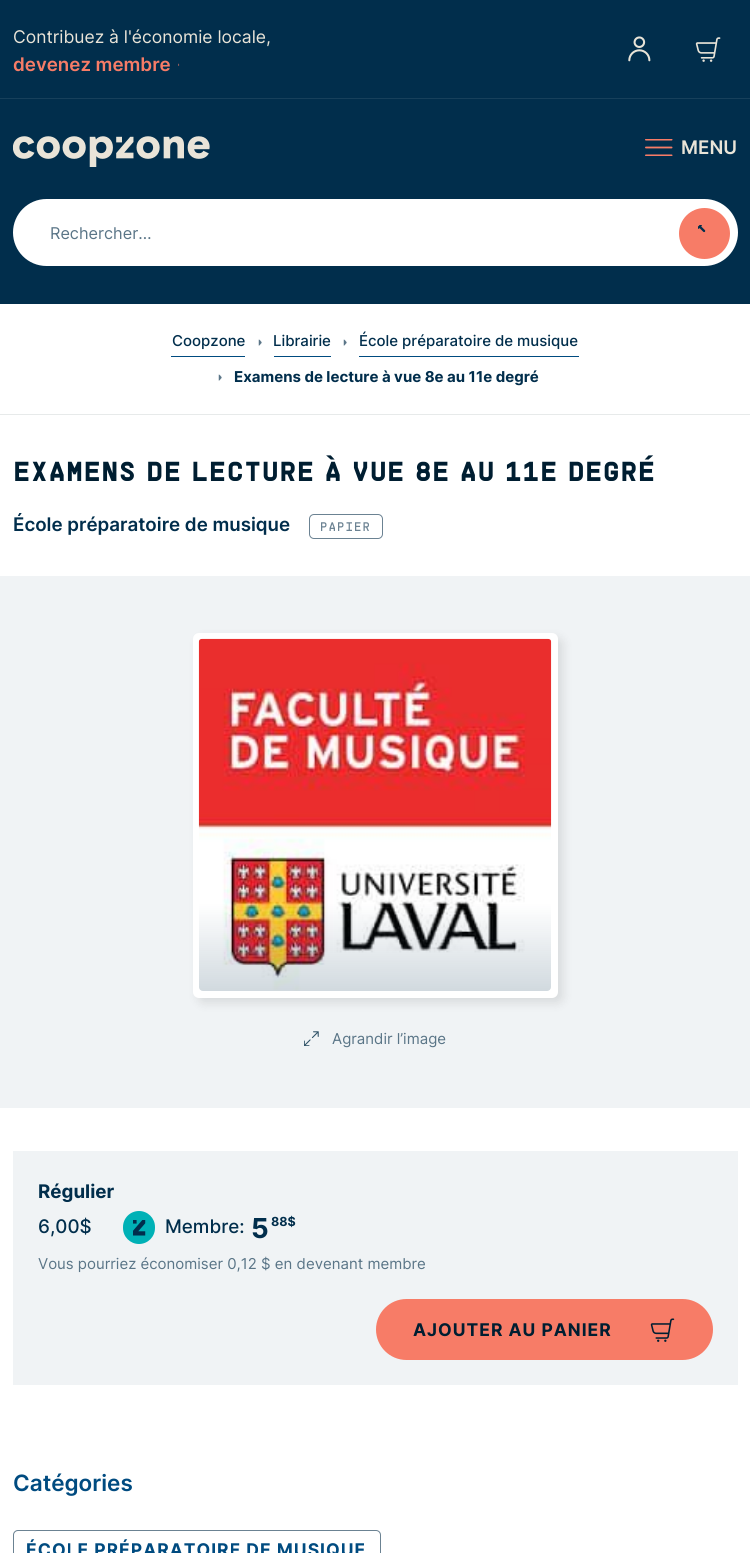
import math
import cairo

surface = cairo.ImageSurface(cairo.FORMAT_RGB24, 750, 1553)
ctx = cairo.Context(surface)
options = cairo.FontOptions()
options.set_hint_metrics(cairo.HINT_METRICS_OFF)
options.set_hint_style(cairo.HINT_STYLE_NONE)
ctx.set_font_options(options)
ctx.set_miter_limit(4)


def set_color(code):
    ctx.set_source_rgb(*(v / 255 for v in bytes.fromhex(code[-6:])))


def draw_text(x, y, s, family, size, color, bold=False, italic=False):
    ctx.select_font_face(family, cairo.FONT_SLANT_ITALIC if italic else cairo.FONT_SLANT_NORMAL, cairo.FONT_WEIGHT_BOLD if bold else cairo.FONT_WEIGHT_NORMAL)
    ctx.set_font_size(size)
    set_color(color)
    ctx.move_to(x, y)
    ctx.show_text(s)


def draw_spaced(x, y, s, letter, word):
    ctx.move_to(x, y)
    for ch in s:
        ctx.show_text(ch)
        ctx.rel_move_to(letter + word * (ch == ' '), 0)


def fill_rect(x, y, w, h, color):
    set_color(color)
    ctx.rectangle(x, y, w, h)
    ctx.fill()


def rounded_rect(x, y, w, h, r):
    ctx.new_sub_path()
    for i, (u, v) in enumerate([(x + w - r, y + h - r), (x + r, y + h - r), (x + r, y + r), (x + w - r, y + r)]):
        ctx.arc(u, v, r, i * math.pi / 2, (i + 1) * math.pi / 2)
    ctx.close_path()


def draw_shadow(x, y, w, h, r, blur, alpha):
    ctx.push_group_with_content(cairo.CONTENT_ALPHA)
    ctx.set_operator(cairo.OPERATOR_SOURCE)
    for i in range(15, -16, -2):
        e = blur * i / 6
        if min(w, h) + 2 * e > 0:
            ctx.set_source_rgba(0, 0, 0, alpha * math.erfc((i - 1) / 8.5) / 2)
            rounded_rect(x - e, y - e, w + 2 * e, h + 2 * e, max(0, min(r + e + blur * .6, min(w, h) / 2 + e)))
            ctx.fill()
    ctx.mask(ctx.pop_group())


def draw_image(path, x, y, w, h):
    ctx.save()
    ctx.set_source_surface(cairo.ImageSurface.create_from_png(path), x, y)
    ctx.rectangle(x, y, w, h)
    ctx.fill()
    ctx.restore()


set_color("#ffffff")
ctx.paint()
fill_rect(0, 0, 750, 304, "#012e4c")
draw_text(13, 43, "Contribuez à l'économie locale,", "Inter", 17.5, "#e9e4d8")
draw_text(13, 71, "devenez membre", "Inter SemiBold", 18.75, "#f77c67")
draw_image("assets/img1.png", 178, 63, 2, 3)
draw_image("assets/img2.png", 628, 36, 23, 26)
draw_image("assets/img3.png", 695, 37, 26, 25)
fill_rect(0, 98, 750, 1, "#17405b")
draw_image("assets/img4.png", 13, 136, 197, 31)
draw_image("assets/img5.png", 645, 139, 28, 17)
draw_text(681, 154, "MENU", "Inter SemiBold", 18.75, "#e9e4d8")
set_color("#ffffff")
rounded_rect(13, 199, 725, 67, 33.5)
ctx.fill()
draw_text(50, 239, "Rechercher…", "Inter", 16.25, "#5a7587")
set_color("#f77c67")
ctx.new_path()
ctx.arc(704.5, 233.5, 25.5, 0, 2 * math.pi)
ctx.fill()
draw_image("assets/img6.png", 698, 225, 8, 8)
fill_rect(0, 414, 750, 1, "#e7eaea")
fill_rect(171, 356, 74, 1, "#004b80")
draw_text(172, 346, "Coopzone", "Inter Medium", 15, "#012e4c")
draw_image("assets/img7.png", 258, 339, 4, 7)
fill_rect(274, 356, 57, 1, "#004b80")
draw_text(273, 346, "Librairie", "Inter Medium", 15, "#012e4c")
draw_image("assets/img7.png", 343, 339, 4, 7)
fill_rect(359, 356, 220, 1, "#004b80")
draw_text(359, 346, "École préparatoire de musique", "Inter Medium", 15, "#012e4c")
draw_image("assets/img7.png", 218, 374, 4, 7)
draw_text(234, 382, "Examens de lecture à vue 8e au 11e degré", "Inter", 15, "#012e4c", bold=True)
draw_text(13, 481, "EXAMENS DE LECTURE À VUE 8E AU 11E DEGRÉ", "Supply", 27.5, "#001e31", bold=True)
draw_text(13, 531, "École préparatoire de musique", "Inter SemiBold", 18.75, "#012e4c")
rounded_rect(309.5, 514.5, 73, 24, 4.5)
set_color("#6b8292")
ctx.set_line_width(1)
ctx.stroke()
ctx.select_font_face("Supply")
ctx.set_font_size(12.5)
draw_spaced(320, 531, "PAPIER", 1, 0)
fill_rect(0, 576, 750, 532, "#f0f3f5")
set_color("#000000")
draw_shadow(198, 638, 365, 365, 6, 5, 0.1)
set_color("#ffffff")
rounded_rect(193, 633, 365, 365, 6)
ctx.fill()
draw_image("assets/img8.png", 198, 638, 354, 353)
gradient = cairo.LinearGradient(375, 639, 375, 991)
gradient.add_color_stop_rgba(0.75, 0.004, 0.18, 0.298, 0)
gradient.add_color_stop_rgba(1, 0.004, 0.18, 0.298, 0.18)
ctx.set_source(gradient)
rounded_rect(199, 639, 352, 352, 4)
ctx.fill()
draw_image("assets/img9.png", 304, 1031, 15, 15)
draw_text(332, 1044, "Agrandir l’image", "Inter", 15, "#5a7587")
fill_rect(13, 1151, 725, 234, "#f0f3f5")
draw_text(38, 1198, "Régulier", "Inter", 18.75, "#012e4c", bold=True)
draw_text(38, 1233, "6,00$", "Inter Medium", 18.75, "#012e4c")
set_color("#00b1b6")
rounded_rect(123, 1211, 32, 33, 16)
ctx.fill()
draw_image("assets/img10.png", 133, 1220, 13, 16)
draw_text(165, 1233, "Membre:", "Inter Medium", 18.75, "#012e4c")
draw_text(251, 1238, "5", "Inter", 27.5, "#012e4c", bold=True)
draw_text(271, 1226, "88$", "Inter", 12.5, "#012e4c", bold=True)
draw_text(38, 1269, "Vous pourriez économiser 0,12 $ en devenant membre", "Inter", 15, "#5a7587")
set_color("#f77c67")
rounded_rect(376, 1299, 337, 61, 30.5)
ctx.fill()
ctx.select_font_face("Inter", cairo.FONT_SLANT_NORMAL, cairo.FONT_WEIGHT_BOLD)
ctx.set_font_size(17.5)
set_color("#001e31")
draw_spaced(413, 1336, "AJOUTER AU PANIER", 1, 0)
draw_image("assets/img11.png", 650, 1318, 25, 24)
draw_text(13, 1491, "Catégories", "Inter SemiBold", 22.5, "#004b80")
rounded_rect(13.5, 1530.5, 367, 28, 4.5)
set_color("#6b8292")
ctx.stroke()
ctx.select_font_face("Inter", cairo.FONT_SLANT_NORMAL, cairo.FONT_WEIGHT_BOLD)
ctx.set_font_size(17.5)
set_color("#004b80")
draw_spaced(26, 1556, "ÉCOLE PRÉPARATOIRE DE MUSIQUE", 1, 0)
surface.write_to_png("output.png")
